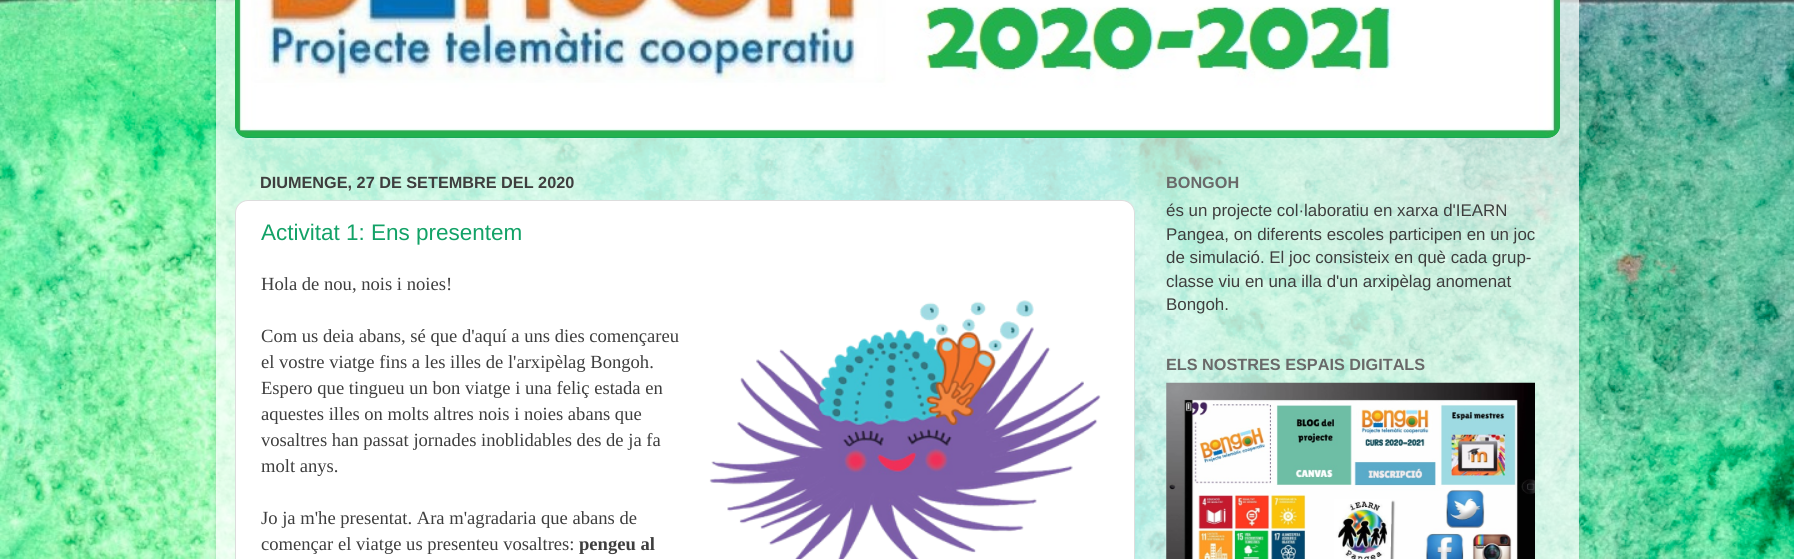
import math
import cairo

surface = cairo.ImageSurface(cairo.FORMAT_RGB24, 1794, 559)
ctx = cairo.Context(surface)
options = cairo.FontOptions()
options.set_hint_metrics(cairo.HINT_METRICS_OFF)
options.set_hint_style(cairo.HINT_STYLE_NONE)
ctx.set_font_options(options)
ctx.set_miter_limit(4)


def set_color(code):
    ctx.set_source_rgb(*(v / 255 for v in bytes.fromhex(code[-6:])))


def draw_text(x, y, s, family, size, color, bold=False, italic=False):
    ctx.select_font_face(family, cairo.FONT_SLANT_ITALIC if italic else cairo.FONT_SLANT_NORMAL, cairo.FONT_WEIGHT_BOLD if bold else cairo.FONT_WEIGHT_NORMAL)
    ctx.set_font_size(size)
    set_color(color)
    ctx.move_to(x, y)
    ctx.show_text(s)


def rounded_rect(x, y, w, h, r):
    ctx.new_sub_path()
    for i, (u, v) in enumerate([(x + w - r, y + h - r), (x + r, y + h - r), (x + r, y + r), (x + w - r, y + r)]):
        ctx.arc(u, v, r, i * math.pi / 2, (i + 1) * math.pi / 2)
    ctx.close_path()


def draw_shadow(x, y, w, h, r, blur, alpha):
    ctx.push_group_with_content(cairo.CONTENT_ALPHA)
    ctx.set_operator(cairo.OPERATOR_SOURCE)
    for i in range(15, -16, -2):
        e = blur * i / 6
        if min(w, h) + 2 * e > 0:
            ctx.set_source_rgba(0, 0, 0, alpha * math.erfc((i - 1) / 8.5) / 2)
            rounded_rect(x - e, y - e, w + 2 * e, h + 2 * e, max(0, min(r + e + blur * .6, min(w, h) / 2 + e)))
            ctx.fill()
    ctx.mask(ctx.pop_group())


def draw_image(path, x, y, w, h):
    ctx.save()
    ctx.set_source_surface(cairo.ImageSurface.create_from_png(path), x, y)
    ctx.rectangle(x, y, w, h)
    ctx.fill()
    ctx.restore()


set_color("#ffffff")
ctx.paint()
draw_image("assets/img1.png", 0, 0, 1794, 559)
ctx.save()
ctx.set_fill_rule(cairo.FILL_RULE_EVEN_ODD)
ctx.new_path()
ctx.move_to(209, 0)
ctx.line_to(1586, 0)
ctx.line_to(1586, 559)
ctx.line_to(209, 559)
ctx.close_path()
ctx.move_to(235, -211)
ctx.line_to(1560, -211)
ctx.curve_to(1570.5, -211, 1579, -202.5, 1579, -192)
ctx.line_to(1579, 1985)
ctx.curve_to(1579, 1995.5, 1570.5, 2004, 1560, 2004)
ctx.line_to(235, 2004)
ctx.curve_to(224.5, 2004, 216, 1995.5, 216, 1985)
ctx.line_to(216, -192)
ctx.curve_to(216, -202.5, 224.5, -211, 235, -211)
ctx.close_path()
ctx.clip()
set_color("#000000")
draw_shadow(216, -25, 1363, 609, 19, 2, 0.15)
ctx.restore()
ctx.set_source_rgba(1, 1, 1, 0.7)
ctx.rectangle(216, 0, 1363, 559)
ctx.fill()
set_color("#12a267")
rounded_rect(235, -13, 1325, 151, 13)
ctx.fill()
draw_image("assets/img2.png", 235, 0, 1325, 138)
draw_text(260, 188, "DIUMENGE, 27 DE SETEMBRE DEL 2020", "Liberation Sans", 16.25, "#3e3e3e", bold=True)
set_color("#ffffff")
rounded_rect(235.5, 200.5, 899, 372, 12.5)
ctx.fill_preserve()
set_color("#dddddd")
ctx.set_line_width(1)
ctx.stroke()
draw_text(261, 240, "Activitat 1: Ens presentem", "Liberation Sans", 22.5, "#12a267")
draw_text(261, 290, "Hola de nou, nois i noies!", "Liberation Serif", 18.6, "#3e3e3e")
draw_text(261, 342, "Com us deia abans, sé que d'aquí a uns dies començareu", "Liberation Serif", 18.6, "#3e3e3e")
draw_image("assets/img3.png", 709, 300, 392, 259)
draw_text(261, 368, "el vostre viatge fins a les illes de l'arxipèlag Bongoh.", "Liberation Serif", 18.6, "#3e3e3e")
draw_text(261, 394, "Espero que tingueu un bon viatge i una feliç estada en", "Liberation Serif", 18.6, "#3e3e3e")
draw_text(261, 420, "aquestes illes on molts altres nois i noies abans que", "Liberation Serif", 18.6, "#3e3e3e")
draw_text(261, 446, "vosaltres han passat jornades inoblidables des de ja fa", "Liberation Serif", 18.6, "#3e3e3e")
draw_text(261, 472, "molt anys.", "Liberation Serif", 18.6, "#3e3e3e")
draw_text(261, 524, "Jo ja m'he presentat. Ara m'agradaria que abans de", "Liberation Serif", 18.6, "#3e3e3e")
draw_text(261, 550, "començar el viatge us presenteu vosaltres:", "Liberation Serif", 18.6, "#3e3e3e")
draw_text(579, 550, "pengeu al", "Liberation Serif", 18.6, "#3e3e3e", bold=True)
draw_text(1166, 188, "BONGOH", "Liberation Sans", 16.25, "#696969", bold=True)
draw_text(1166, 216, "és un projecte col·laboratiu en xarxa d'IEARN", "Liberation Sans", 16.9, "#3e3e3e")
draw_text(1166, 240, "Pangea, on diferents escoles participen en un joc", "Liberation Sans", 16.9, "#3e3e3e")
draw_text(1166, 263, "de simulació. El joc consisteix en què cada grup-", "Liberation Sans", 16.9, "#3e3e3e")
draw_text(1166, 287, "classe viu en una illa d'un arxipèlag anomenat", "Liberation Sans", 16.9, "#3e3e3e")
draw_text(1166, 310, "Bongoh.", "Liberation Sans", 16.9, "#3e3e3e")
draw_text(1166, 370, "ELS NOSTRES ESPAIS DIGITALS", "Liberation Sans", 16.25, "#696969", bold=True)
draw_image("assets/img4.png", 1166, 382, 369, 177)
surface.write_to_png("output.png")
